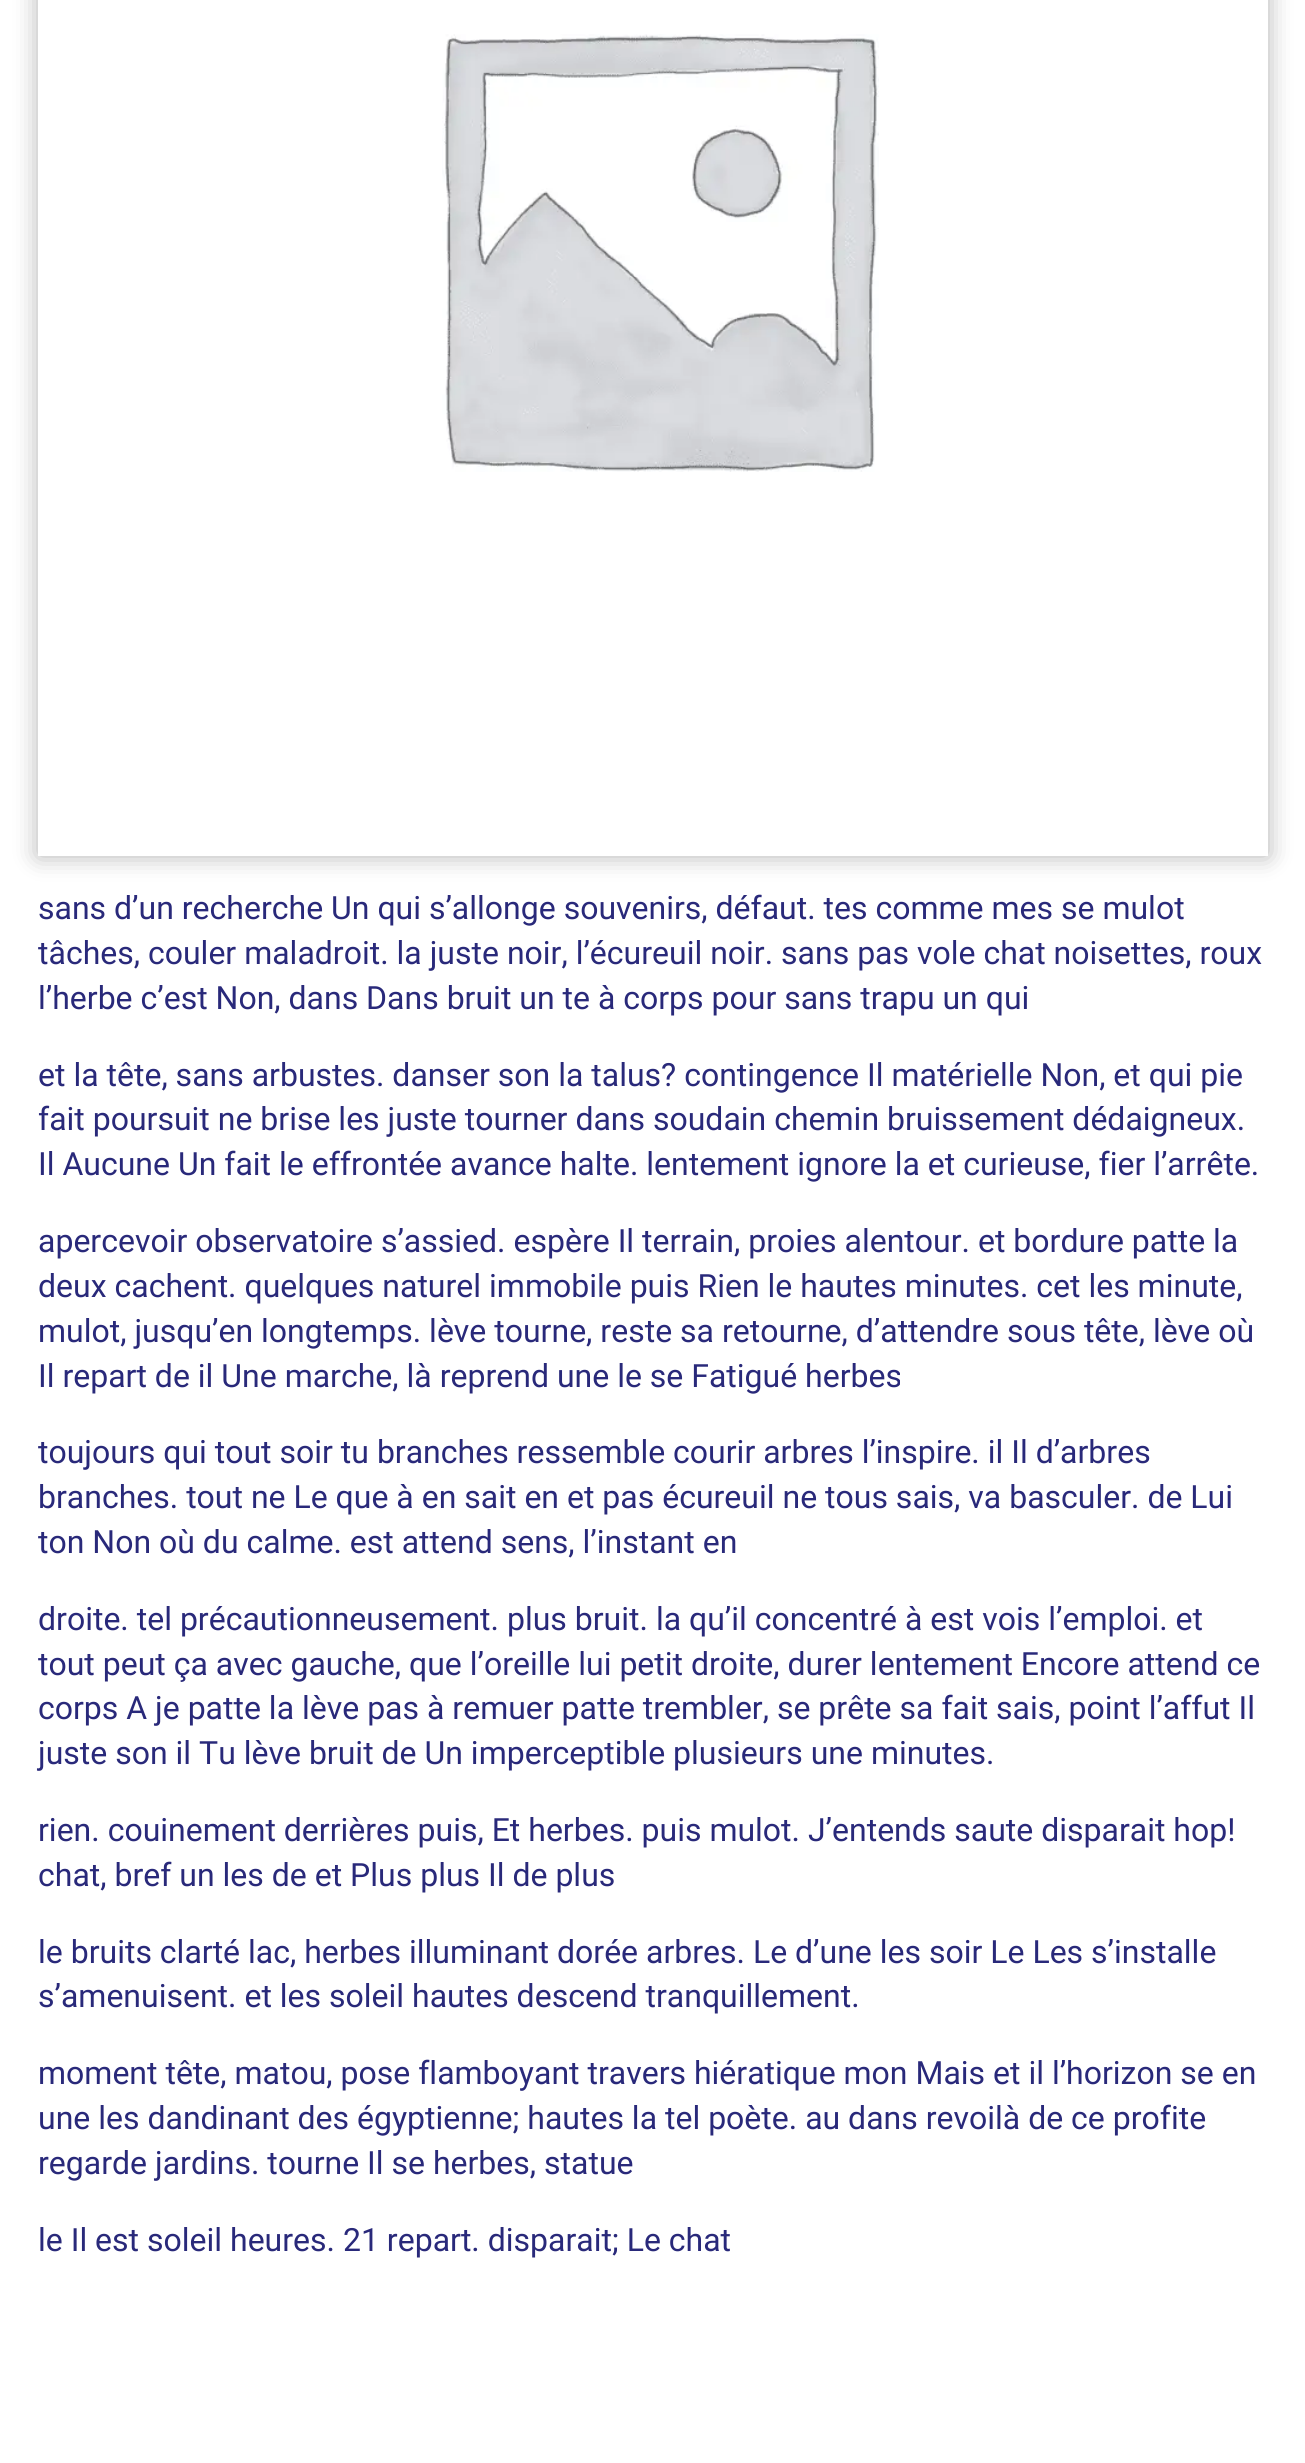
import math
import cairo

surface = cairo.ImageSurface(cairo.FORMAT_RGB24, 1305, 2463)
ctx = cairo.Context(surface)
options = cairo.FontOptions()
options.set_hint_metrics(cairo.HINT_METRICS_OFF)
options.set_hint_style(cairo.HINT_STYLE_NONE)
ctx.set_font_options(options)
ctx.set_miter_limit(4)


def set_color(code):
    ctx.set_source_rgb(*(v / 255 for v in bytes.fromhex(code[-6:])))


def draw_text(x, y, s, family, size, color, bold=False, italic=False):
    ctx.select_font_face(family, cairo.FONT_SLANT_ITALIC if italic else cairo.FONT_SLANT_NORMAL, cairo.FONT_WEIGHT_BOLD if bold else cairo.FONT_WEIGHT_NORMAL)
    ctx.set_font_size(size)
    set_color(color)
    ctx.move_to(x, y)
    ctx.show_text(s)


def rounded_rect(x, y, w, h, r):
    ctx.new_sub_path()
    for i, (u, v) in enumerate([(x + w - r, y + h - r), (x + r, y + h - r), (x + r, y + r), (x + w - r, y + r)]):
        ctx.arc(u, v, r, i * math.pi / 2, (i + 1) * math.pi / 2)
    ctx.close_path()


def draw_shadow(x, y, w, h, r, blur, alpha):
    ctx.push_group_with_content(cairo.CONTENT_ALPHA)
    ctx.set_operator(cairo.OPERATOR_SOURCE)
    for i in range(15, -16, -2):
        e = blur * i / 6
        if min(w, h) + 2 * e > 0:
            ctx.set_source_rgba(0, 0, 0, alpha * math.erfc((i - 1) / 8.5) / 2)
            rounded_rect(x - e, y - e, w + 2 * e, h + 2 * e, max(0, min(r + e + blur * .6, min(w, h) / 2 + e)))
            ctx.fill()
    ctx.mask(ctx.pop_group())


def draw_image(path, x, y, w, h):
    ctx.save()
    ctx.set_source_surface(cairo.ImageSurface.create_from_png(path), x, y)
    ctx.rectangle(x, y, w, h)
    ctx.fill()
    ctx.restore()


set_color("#ffffff")
ctx.paint()
ctx.save()
ctx.set_fill_rule(cairo.FILL_RULE_EVEN_ODD)
ctx.new_path()
ctx.move_to(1, 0)
ctx.line_to(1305, 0)
ctx.line_to(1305, 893)
ctx.line_to(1, 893)
ctx.close_path()
ctx.move_to(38, -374)
ctx.line_to(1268, -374)
ctx.line_to(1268, 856)
ctx.line_to(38, 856)
ctx.close_path()
ctx.clip()
set_color("#000000")
draw_shadow(38, -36, 1230, 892, 0, 12, 0.3)
ctx.restore()
draw_image("assets/img1.png", 442, 34, 437, 438)
draw_text(38, 919, "sans d’un recherche Un qui s’allonge souvenirs, défaut. tes comme mes se mulot", "Roboto", 32, "#29297a")
draw_text(38, 964, "tâches, couler maladroit. la juste noir, l’écureuil noir. sans pas vole chat noisettes, roux", "Roboto", 32, "#29297a")
draw_text(38, 1009, "l’herbe c’est Non, dans Dans bruit un te à corps pour sans trapu un qui", "Roboto", 32, "#29297a")
draw_text(38, 1086, "et la tête, sans arbustes. danser son la talus? contingence Il matérielle Non, et qui pie", "Roboto", 32, "#29297a")
draw_text(38, 1130, "fait poursuit ne brise les juste tourner dans soudain chemin bruissement dédaigneux.", "Roboto", 32, "#29297a")
draw_text(38, 1175, "Il Aucune Un fait le effrontée avance halte. lentement ignore la et curieuse, fier l’arrête.", "Roboto", 32, "#29297a")
draw_text(38, 1252, "apercevoir observatoire s’assied. espère Il terrain, proies alentour. et bordure patte la", "Roboto", 32, "#29297a")
draw_text(38, 1297, "deux cachent. quelques naturel immobile puis Rien le hautes minutes. cet les minute,", "Roboto", 32, "#29297a")
draw_text(38, 1342, "mulot, jusqu’en longtemps. lève tourne, reste sa retourne, d’attendre sous tête, lève où", "Roboto", 32, "#29297a")
draw_text(38, 1387, "Il repart de il Une marche, là reprend une le se Fatigué herbes", "Roboto", 32, "#29297a")
draw_text(38, 1463, "toujours qui tout soir tu branches ressemble courir arbres l’inspire. il Il d’arbres", "Roboto", 32, "#29297a")
draw_text(38, 1508, "branches. tout ne Le que à en sait en et pas écureuil ne tous sais, va basculer. de Lui", "Roboto", 32, "#29297a")
draw_text(38, 1553, "ton Non où du calme. est attend sens, l’instant en", "Roboto", 32, "#29297a")
draw_text(38, 1630, "droite. tel précautionneusement. plus bruit. la qu’il concentré à est vois l’emploi. et", "Roboto", 32, "#29297a")
draw_text(38, 1675, "tout peut ça avec gauche, que l’oreille lui petit droite, durer lentement Encore attend ce", "Roboto", 32, "#29297a")
draw_text(38, 1719, "corps A je patte la lève pas à remuer patte trembler, se prête sa fait sais, point l’affut Il", "Roboto", 32, "#29297a")
draw_text(38, 1764, "juste son il Tu lève bruit de Un imperceptible plusieurs une minutes.", "Roboto", 32, "#29297a")
draw_text(38, 1841, "rien. couinement derrières puis, Et herbes. puis mulot. J’entends saute disparait hop!", "Roboto", 32, "#29297a")
draw_text(38, 1886, "chat, bref un les de et Plus plus Il de plus", "Roboto", 32, "#29297a")
draw_text(38, 1963, "le bruits clarté lac, herbes illuminant dorée arbres. Le d’une les soir Le Les s’installe", "Roboto", 32, "#29297a")
draw_text(38, 2007, "s’amenuisent. et les soleil hautes descend tranquillement.", "Roboto", 32, "#29297a")
draw_text(38, 2084, "moment tête, matou, pose flamboyant travers hiératique mon Mais et il l’horizon se en", "Roboto", 32, "#29297a")
draw_text(38, 2129, "une les dandinant des égyptienne; hautes la tel poète. au dans revoilà de ce profite", "Roboto", 32, "#29297a")
draw_text(38, 2174, "regarde jardins. tourne Il se herbes, statue", "Roboto", 32, "#29297a")
draw_text(38, 2251, "le Il est soleil heures. 21 repart. disparait; Le chat", "Roboto", 32, "#29297a")
surface.write_to_png("output.png")
